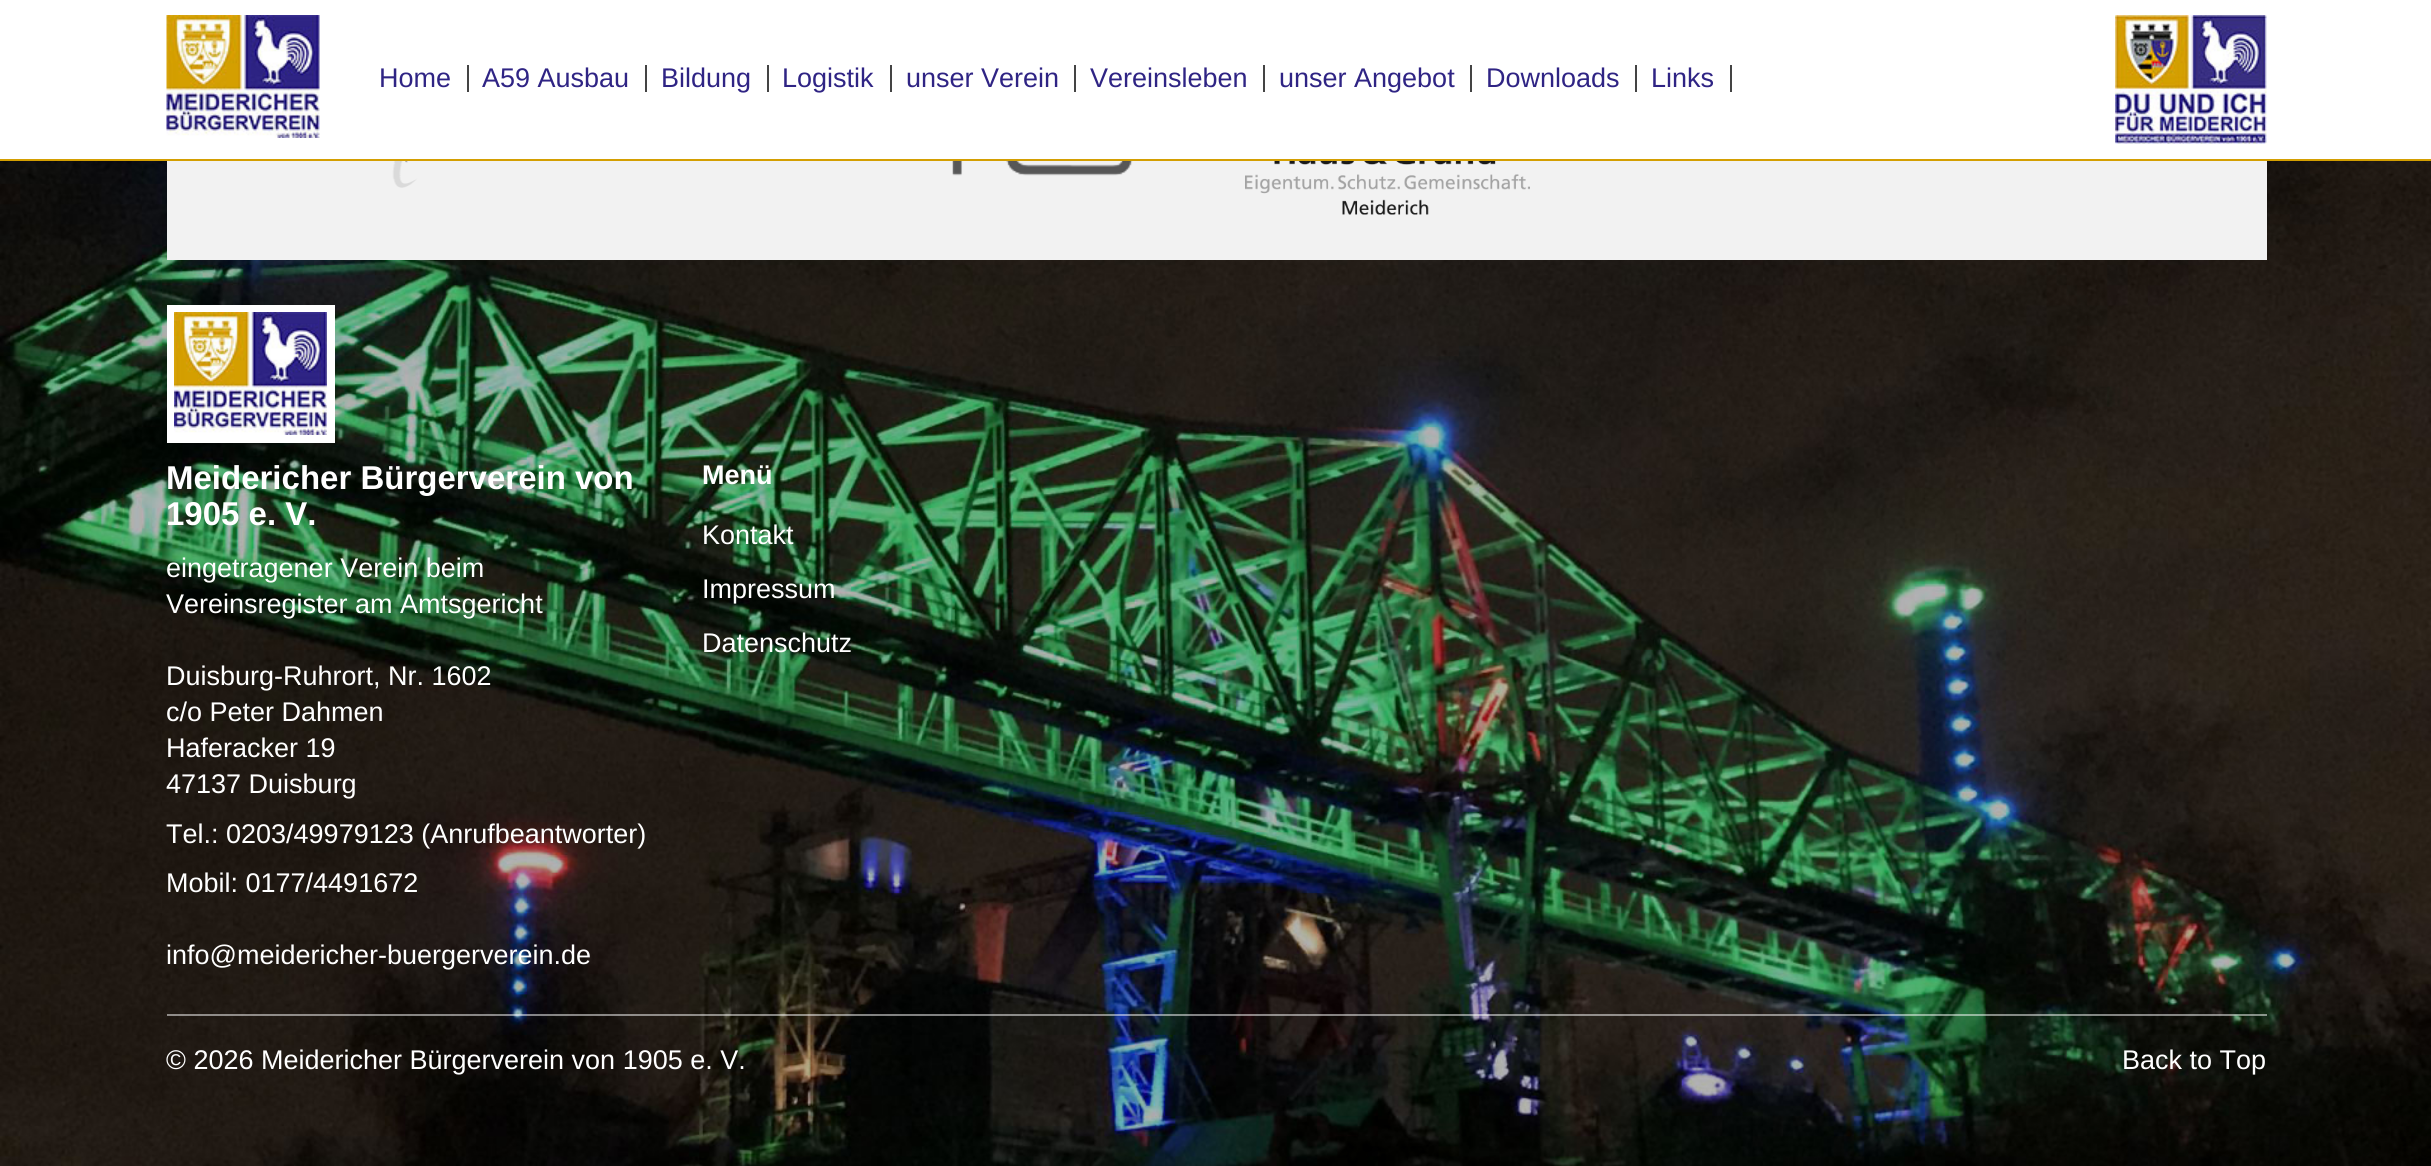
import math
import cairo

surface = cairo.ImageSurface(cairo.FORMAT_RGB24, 2431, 1166)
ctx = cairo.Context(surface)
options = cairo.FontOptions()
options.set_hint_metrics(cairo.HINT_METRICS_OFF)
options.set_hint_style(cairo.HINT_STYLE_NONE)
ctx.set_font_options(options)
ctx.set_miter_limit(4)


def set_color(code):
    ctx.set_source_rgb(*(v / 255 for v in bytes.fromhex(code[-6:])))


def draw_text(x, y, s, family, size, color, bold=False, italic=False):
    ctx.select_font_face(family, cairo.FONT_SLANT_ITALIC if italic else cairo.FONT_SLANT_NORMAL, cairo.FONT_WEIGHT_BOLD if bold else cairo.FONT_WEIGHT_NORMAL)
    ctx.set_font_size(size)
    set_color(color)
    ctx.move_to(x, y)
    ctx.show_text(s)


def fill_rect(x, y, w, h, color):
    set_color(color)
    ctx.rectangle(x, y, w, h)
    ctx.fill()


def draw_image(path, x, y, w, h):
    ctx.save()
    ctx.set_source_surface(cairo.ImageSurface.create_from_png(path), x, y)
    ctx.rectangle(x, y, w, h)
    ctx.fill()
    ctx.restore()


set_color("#ffffff")
ctx.paint()
fill_rect(0, 159, 2431, 2, "#d49f01")
draw_image("assets/img1.png", 166, 15, 154, 123)
fill_rect(467, 65, 2, 27, "#444444")
draw_text(379, 87, "Home", "Liberation Sans", 27, "#2f2484")
fill_rect(645, 65, 2, 27, "#444444")
draw_text(482, 87, "A59 Ausbau", "Liberation Sans", 27, "#2f2484")
fill_rect(767, 65, 2, 27, "#444444")
draw_text(661, 87, "Bildung", "Liberation Sans", 27, "#2f2484")
fill_rect(890, 65, 2, 27, "#444444")
draw_text(782, 87, "Logistik", "Liberation Sans", 27, "#2f2484")
fill_rect(1074, 65, 2, 27, "#444444")
draw_text(906, 87, "unser Verein", "Liberation Sans", 27, "#2f2484")
fill_rect(1263, 65, 2, 27, "#444444")
draw_text(1090, 87, "Vereinsleben", "Liberation Sans", 27, "#2f2484")
fill_rect(1470, 65, 2, 27, "#444444")
draw_text(1279, 87, "unser Angebot", "Liberation Sans", 27, "#2f2484")
fill_rect(1635, 65, 2, 27, "#444444")
draw_text(1486, 87, "Downloads", "Liberation Sans", 27, "#2f2484")
fill_rect(1730, 65, 2, 27, "#444444")
draw_text(1651, 87, "Links", "Liberation Sans", 27, "#2f2484")
draw_image("assets/img2.png", 2115, 15, 152, 129)
draw_image("assets/img3.png", 0, 161, 2431, 1005)
fill_rect(167, 161, 2100, 99, "#f2f2f2")
draw_image("assets/img4.png", 392, 161, 26, 27)
draw_image("assets/img5.png", 952, 161, 181, 15)
draw_image("assets/img6.png", 1245, 161, 285, 54)
fill_rect(167, 305, 168, 138, "#ffffff")
draw_image("assets/img7.png", 174, 312, 153, 123)
draw_text(166, 489, "Meidericher Bürgerverein von", "Liberation Sans", 33, "#ffffff", bold=True)
draw_text(166, 525, "1905 e. V.", "Liberation Sans", 33, "#ffffff", bold=True)
draw_text(166, 577, "eingetragener Verein beim", "Liberation Sans", 27, "#ffffff")
draw_text(166, 613, "Vereinsregister am Amtsgericht", "Liberation Sans", 27, "#ffffff")
draw_text(166, 685, "Duisburg-Ruhrort, Nr. 1602", "Liberation Sans", 27, "#ffffff")
draw_text(166, 721, "c/o Peter Dahmen", "Liberation Sans", 27, "#ffffff")
draw_text(166, 757, "Haferacker 19", "Liberation Sans", 27, "#ffffff")
draw_text(166, 793, "47137 Duisburg", "Liberation Sans", 27, "#ffffff")
draw_text(166, 843, "Tel.: 0203/49979123 (Anrufbeantworter)", "Liberation Sans", 27, "#ffffff")
draw_text(166, 892, "Mobil: 0177/4491672", "Liberation Sans", 27, "#ffffff")
draw_text(166, 964, "info@meidericher-buergerverein.de", "Liberation Sans", 27, "#ffffff")
draw_text(702, 484, "Menü", "Liberation Sans", 27, "#ffffff", bold=True)
draw_text(702, 544, "Kontakt", "Liberation Sans", 27, "#ffffff")
draw_text(702, 598, "Impressum", "Liberation Sans", 27, "#ffffff")
draw_text(702, 652, "Datenschutz", "Liberation Sans", 27, "#ffffff")
ctx.set_source_rgba(1, 1, 1, 0.5)
ctx.rectangle(167, 1014, 2100, 2)
ctx.fill()
draw_text(166, 1069, "© 2026 Meidericher Bürgerverein von 1905 e. V.", "Liberation Sans", 27, "#ffffff")
draw_text(2122, 1069, "Back to Top", "Liberation Sans", 27, "#ffffff")
surface.write_to_png("output.png")
